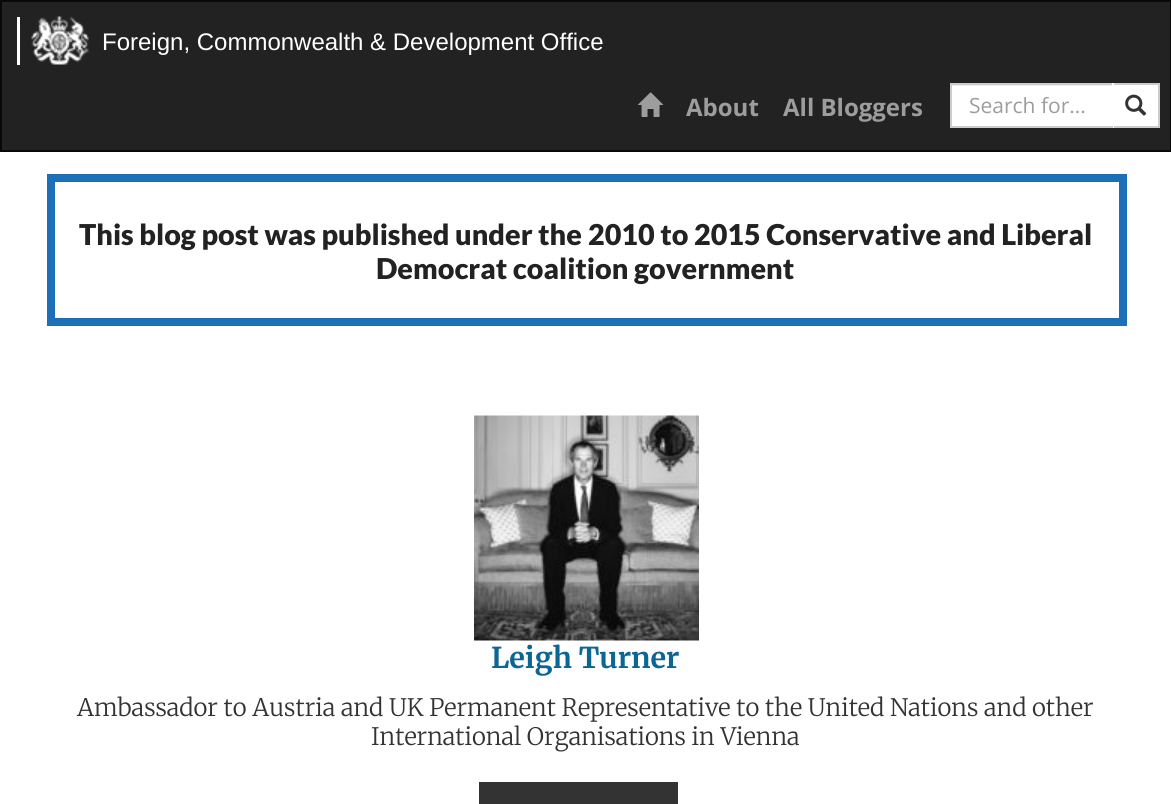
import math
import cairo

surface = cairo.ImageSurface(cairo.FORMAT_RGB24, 1171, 804)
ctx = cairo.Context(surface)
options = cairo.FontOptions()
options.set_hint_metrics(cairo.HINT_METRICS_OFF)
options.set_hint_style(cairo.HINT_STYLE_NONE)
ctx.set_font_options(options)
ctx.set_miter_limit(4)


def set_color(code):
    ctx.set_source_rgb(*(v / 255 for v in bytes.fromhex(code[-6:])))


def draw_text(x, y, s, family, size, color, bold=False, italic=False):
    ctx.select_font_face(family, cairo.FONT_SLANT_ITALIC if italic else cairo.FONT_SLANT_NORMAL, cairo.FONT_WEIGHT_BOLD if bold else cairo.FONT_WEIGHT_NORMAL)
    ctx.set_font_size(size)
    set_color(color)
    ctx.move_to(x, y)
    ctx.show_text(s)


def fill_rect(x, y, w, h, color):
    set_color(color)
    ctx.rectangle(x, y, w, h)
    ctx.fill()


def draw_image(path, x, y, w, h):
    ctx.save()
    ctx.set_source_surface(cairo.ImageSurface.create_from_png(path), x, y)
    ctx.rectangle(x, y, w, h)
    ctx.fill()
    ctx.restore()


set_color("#ffffff")
ctx.paint()
set_color("#222222")
ctx.rectangle(1, 1, 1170, 150)
ctx.fill_preserve()
set_color("#080808")
ctx.stroke()
draw_image("assets/img1.png", 31, 16, 58, 49)
fill_rect(17, 17, 3, 48, "#ffffff")
draw_text(102, 50, "Foreign, Commonwealth & Development Office", "Liberation Sans", 24, "#ffffff")
draw_image("assets/img2.png", 637, 92, 27, 25)
draw_text(686, 116, "About", "Open Sans", 24, "#9d9d9d", bold=True)
draw_text(783, 116, "All Bloggers", "Open Sans", 24, "#9d9d9d", bold=True)
fill_rect(952, 86, 160, 40, "#ffffff")
fill_rect(951, 85, 161, 1, "#ececec")
set_color("#ffffff")
ctx.rectangle(1113, 84, 46, 43)
ctx.fill_preserve()
set_color("#cccccc")
ctx.stroke()
fill_rect(950, 83, 163, 2, "#cccccc")
fill_rect(1112, 83, 2, 45, "#ffffff")
fill_rect(950, 126, 163, 2, "#cccccc")
fill_rect(950, 83, 2, 45, "#cccccc")
draw_text(969, 113, "Search for...", "Open Sans", 21, "#9d9d9d")
draw_image("assets/img3.png", 1125, 94, 22, 22)
ctx.rectangle(51, 178, 1072, 144)
set_color("#1d70b8")
ctx.set_line_width(8)
ctx.stroke()
draw_text(79, 245, "This blog post was published under the", "Lato Black", 28.75, "#222222")
draw_text(588, 245, "2010 to 2015 Conservative and Liberal", "Lato Black", 28.75, "#222222")
draw_text(376, 279, "Democrat coalition government", "Lato Black", 28.75, "#222222")
draw_image("assets/img4.png", 474, 415, 225, 226)
draw_text(491, 668, "Leigh Turner", "Merriweather", 28.75, "#0c6694", bold=True)
draw_text(77, 716, "Ambassador to Austria and UK Permanent Representative to the United Nations and other", "Merriweather Light", 24, "#333333")
draw_text(371, 745, "International Organisations in Vienna", "Merriweather Light", 24, "#333333")
fill_rect(479, 782, 199, 22, "#333333")
surface.write_to_png("output.png")
